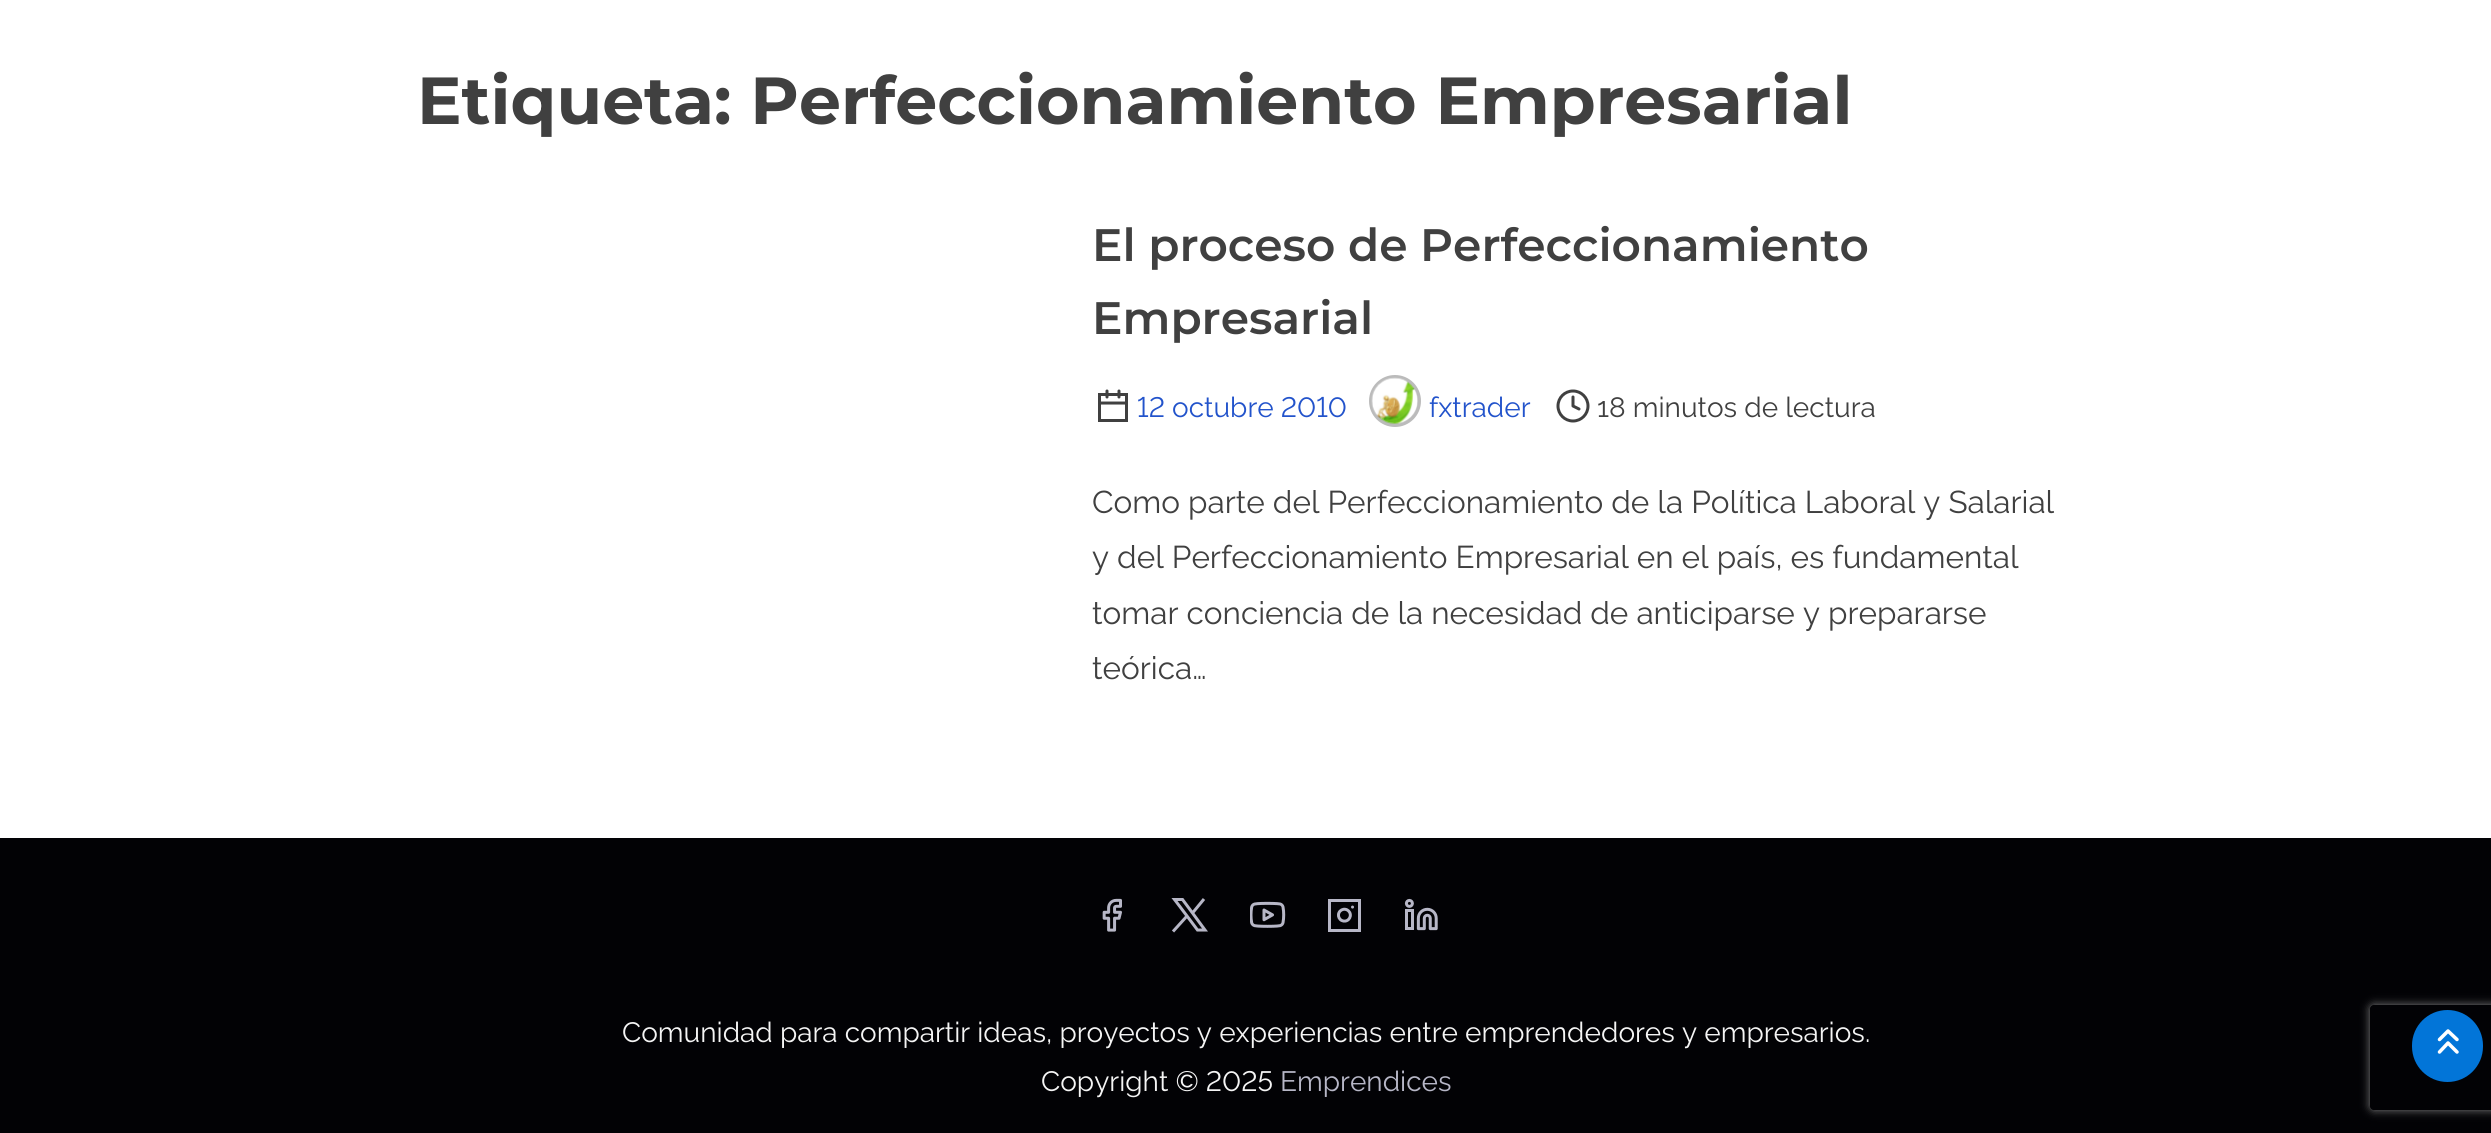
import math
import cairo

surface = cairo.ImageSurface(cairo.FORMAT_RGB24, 2491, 1133)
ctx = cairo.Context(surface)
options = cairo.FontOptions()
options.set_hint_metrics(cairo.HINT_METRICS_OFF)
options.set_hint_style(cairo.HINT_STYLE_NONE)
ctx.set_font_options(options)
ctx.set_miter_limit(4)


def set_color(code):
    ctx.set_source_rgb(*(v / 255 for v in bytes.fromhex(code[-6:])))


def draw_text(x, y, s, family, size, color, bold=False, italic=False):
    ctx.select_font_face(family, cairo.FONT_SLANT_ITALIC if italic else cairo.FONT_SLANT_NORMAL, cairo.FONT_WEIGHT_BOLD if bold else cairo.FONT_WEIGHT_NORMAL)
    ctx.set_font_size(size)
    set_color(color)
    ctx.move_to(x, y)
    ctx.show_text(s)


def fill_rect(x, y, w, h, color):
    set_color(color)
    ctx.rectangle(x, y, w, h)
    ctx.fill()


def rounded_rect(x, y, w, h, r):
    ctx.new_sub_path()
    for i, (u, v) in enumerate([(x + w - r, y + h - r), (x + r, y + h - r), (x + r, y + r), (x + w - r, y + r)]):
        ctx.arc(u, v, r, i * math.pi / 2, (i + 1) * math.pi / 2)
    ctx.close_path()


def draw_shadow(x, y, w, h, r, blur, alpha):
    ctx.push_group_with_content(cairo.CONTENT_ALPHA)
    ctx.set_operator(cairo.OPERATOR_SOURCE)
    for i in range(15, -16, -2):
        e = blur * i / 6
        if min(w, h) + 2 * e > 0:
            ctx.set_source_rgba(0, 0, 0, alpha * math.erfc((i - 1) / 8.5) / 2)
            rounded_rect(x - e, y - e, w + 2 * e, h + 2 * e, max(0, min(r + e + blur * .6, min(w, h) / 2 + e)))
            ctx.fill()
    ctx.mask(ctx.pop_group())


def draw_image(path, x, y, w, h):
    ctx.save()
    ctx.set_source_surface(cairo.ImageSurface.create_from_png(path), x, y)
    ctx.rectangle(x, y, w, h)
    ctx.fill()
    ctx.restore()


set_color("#ffffff")
ctx.paint()
draw_text(417, 124, "Etiqueta: Perfeccionamiento Empresarial", "Montserrat", 66.5, "#404040", bold=True)
draw_text(1092, 261, "El proceso de Perfeccionamiento", "Montserrat SemiBold", 45.5, "#404040")
draw_text(1092, 334, "Empresarial", "Montserrat SemiBold", 45.5, "#404040")
ctx.rectangle(1099.5, 394.5, 27, 26)
ctx.set_line_width(3)
ctx.stroke()
ctx.new_path()
ctx.move_to(1119, 391)
ctx.line_to(1119, 397)
ctx.move_to(1107, 391)
ctx.line_to(1107, 397)
ctx.move_to(1099.5, 403)
ctx.line_to(1126.5, 403)
ctx.set_line_cap(cairo.LINE_CAP_ROUND)
ctx.set_line_join(cairo.LINE_JOIN_ROUND)
ctx.stroke()
draw_text(1137, 417, "12 octubre 2010", "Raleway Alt", 28, "#2253cb")
ctx.new_path()
ctx.arc(1395, 401, 24, 0, 2 * math.pi)
set_color("#bbbbbb")
ctx.set_line_width(4)
ctx.set_line_cap(cairo.LINE_CAP_BUTT)
ctx.set_line_join(cairo.LINE_JOIN_MITER)
ctx.stroke()
draw_image("assets/img1.png", 1371, 377, 47, 47)
draw_text(1429, 417, "fxtrader", "Raleway", 28, "#2253cb")
ctx.new_path()
ctx.arc(1573, 406, 15, 0, 2 * math.pi)
set_color("#404040")
ctx.set_line_width(3)
ctx.stroke()
ctx.new_path()
ctx.move_to(1573, 397)
ctx.line_to(1573, 406)
ctx.line_to(1579, 409)
ctx.set_line_cap(cairo.LINE_CAP_ROUND)
ctx.set_line_join(cairo.LINE_JOIN_ROUND)
ctx.stroke()
draw_text(1597, 417, "18 minutos de lectura", "Raleway", 28, "#404040")
draw_text(1092, 513, "Como parte del Perfeccionamiento de la Política Laboral y Salarial", "Raleway", 31.5, "#404040")
draw_text(1092, 568, "y del Perfeccionamiento Empresarial en el país, es fundamental", "Raleway", 31.5, "#404040")
draw_text(1092, 624, "tomar conciencia de la necesidad de anticiparse y prepararse", "Raleway", 31.5, "#404040")
draw_text(1092, 679, "teórica…", "Raleway", 31.5, "#404040")
fill_rect(0, 838, 2491, 295, "#020205")
draw_image("assets/img2.png", 1102, 898, 20, 34)
ctx.new_path()
ctx.move_to(1187, 916)
ctx.line_to(1174.5, 899.5)
ctx.line_to(1182.5, 899.5)
ctx.line_to(1192.5, 913)
ctx.move_to(1187, 916)
ctx.line_to(1197.5, 930)
ctx.line_to(1205, 930)
ctx.line_to(1192.5, 913)
ctx.move_to(1187, 916)
ctx.line_to(1173, 931.5)
ctx.move_to(1192.5, 913)
ctx.line_to(1204, 899)
set_color("#b7b7c7")
ctx.set_line_cap(cairo.LINE_CAP_BUTT)
ctx.set_line_join(cairo.LINE_JOIN_MITER)
ctx.stroke()
draw_image("assets/img3.png", 1250, 901, 36, 27)
draw_image("assets/img4.png", 1328, 899, 33, 33)
draw_image("assets/img5.png", 1404, 898, 34, 33)
draw_text(622, 1042, "Comunidad para compartir ideas, proyectos y experiencias entre emprendedores y empresarios.", "Raleway", 28, "#f5f5f5")
draw_text(1041, 1091, "Copyright © 2025", "Raleway Alt", 28, "#f5f5f5")
draw_text(1280, 1091, "Emprendices", "Raleway", 28, "#b7b7c7")
ctx.save()
ctx.set_fill_rule(cairo.FILL_RULE_EVEN_ODD)
ctx.new_path()
ctx.move_to(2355, 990)
ctx.line_to(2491, 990)
ctx.line_to(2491, 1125)
ctx.line_to(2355, 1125)
ctx.close_path()
ctx.move_to(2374, 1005)
ctx.line_to(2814, 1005)
ctx.curve_to(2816, 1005, 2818, 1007, 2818, 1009)
ctx.line_to(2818, 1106)
ctx.curve_to(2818, 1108, 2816, 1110, 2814, 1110)
ctx.line_to(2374, 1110)
ctx.curve_to(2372, 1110, 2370, 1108, 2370, 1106)
ctx.line_to(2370, 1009)
ctx.curve_to(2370, 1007, 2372, 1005, 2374, 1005)
ctx.close_path()
ctx.clip()
set_color("#808080")
draw_shadow(2370, 1005, 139, 105, 4, 4.5, 1)
ctx.restore()
set_color("#0275d8")
rounded_rect(2412, 1010, 71, 72, 35.5)
ctx.fill()
ctx.new_path()
ctx.move_to(2457, 1039.5)
ctx.line_to(2448, 1031)
ctx.line_to(2439.5, 1039.5)
ctx.move_to(2457, 1052)
ctx.line_to(2448, 1043)
ctx.line_to(2439.5, 1052)
set_color("#ffffff")
ctx.set_line_width(3.5)
ctx.set_line_cap(cairo.LINE_CAP_ROUND)
ctx.set_line_join(cairo.LINE_JOIN_ROUND)
ctx.stroke()
surface.write_to_png("output.png")
